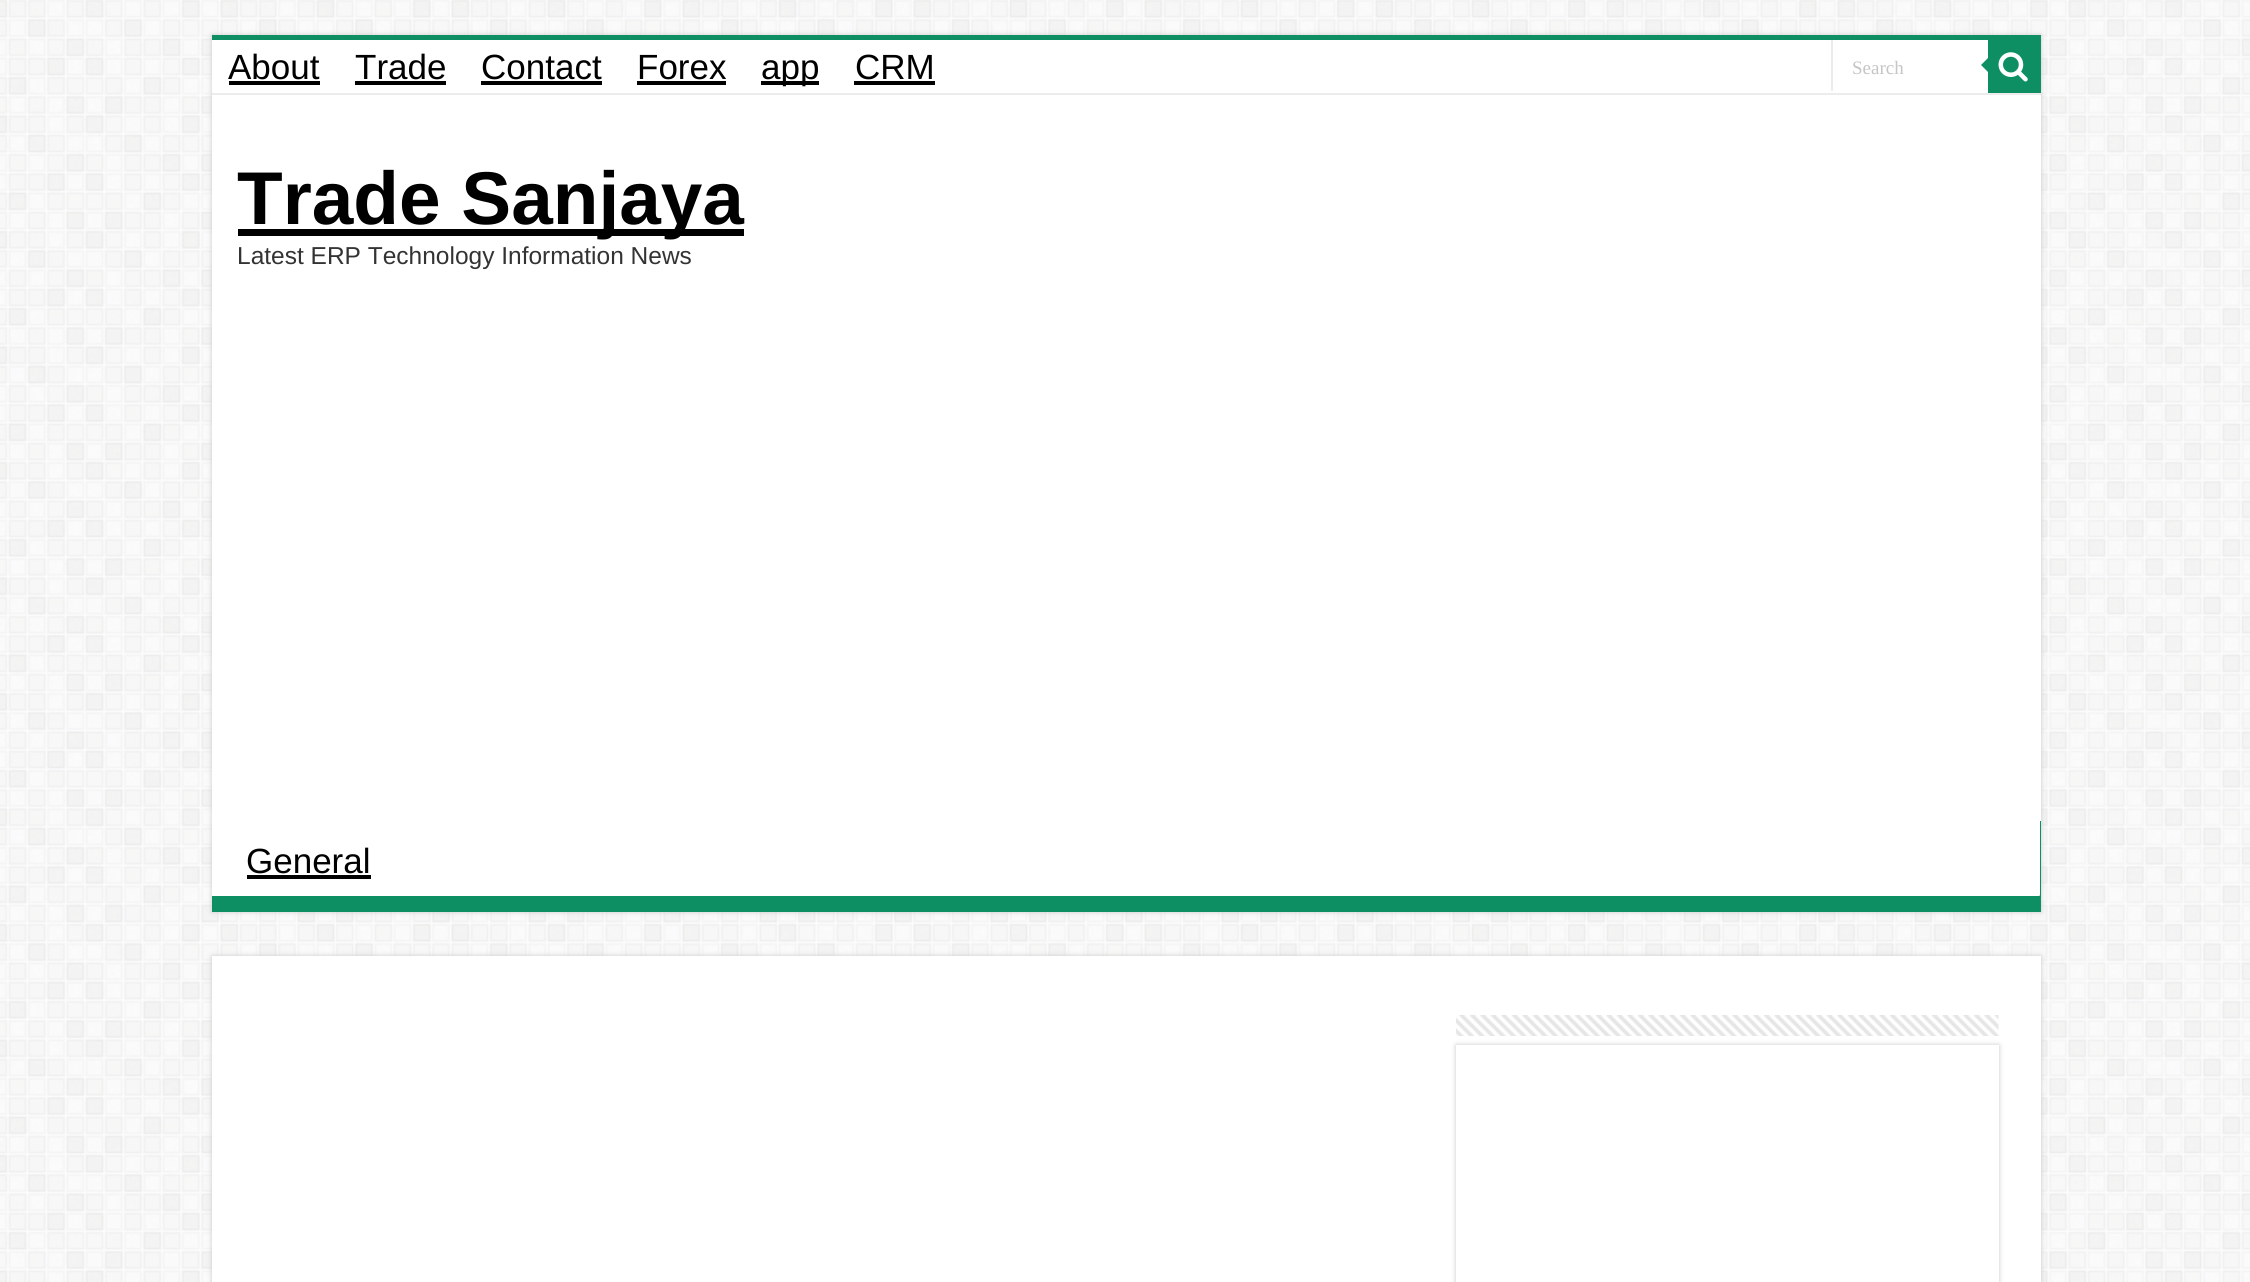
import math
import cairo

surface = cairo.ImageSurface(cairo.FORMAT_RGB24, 2250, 1282)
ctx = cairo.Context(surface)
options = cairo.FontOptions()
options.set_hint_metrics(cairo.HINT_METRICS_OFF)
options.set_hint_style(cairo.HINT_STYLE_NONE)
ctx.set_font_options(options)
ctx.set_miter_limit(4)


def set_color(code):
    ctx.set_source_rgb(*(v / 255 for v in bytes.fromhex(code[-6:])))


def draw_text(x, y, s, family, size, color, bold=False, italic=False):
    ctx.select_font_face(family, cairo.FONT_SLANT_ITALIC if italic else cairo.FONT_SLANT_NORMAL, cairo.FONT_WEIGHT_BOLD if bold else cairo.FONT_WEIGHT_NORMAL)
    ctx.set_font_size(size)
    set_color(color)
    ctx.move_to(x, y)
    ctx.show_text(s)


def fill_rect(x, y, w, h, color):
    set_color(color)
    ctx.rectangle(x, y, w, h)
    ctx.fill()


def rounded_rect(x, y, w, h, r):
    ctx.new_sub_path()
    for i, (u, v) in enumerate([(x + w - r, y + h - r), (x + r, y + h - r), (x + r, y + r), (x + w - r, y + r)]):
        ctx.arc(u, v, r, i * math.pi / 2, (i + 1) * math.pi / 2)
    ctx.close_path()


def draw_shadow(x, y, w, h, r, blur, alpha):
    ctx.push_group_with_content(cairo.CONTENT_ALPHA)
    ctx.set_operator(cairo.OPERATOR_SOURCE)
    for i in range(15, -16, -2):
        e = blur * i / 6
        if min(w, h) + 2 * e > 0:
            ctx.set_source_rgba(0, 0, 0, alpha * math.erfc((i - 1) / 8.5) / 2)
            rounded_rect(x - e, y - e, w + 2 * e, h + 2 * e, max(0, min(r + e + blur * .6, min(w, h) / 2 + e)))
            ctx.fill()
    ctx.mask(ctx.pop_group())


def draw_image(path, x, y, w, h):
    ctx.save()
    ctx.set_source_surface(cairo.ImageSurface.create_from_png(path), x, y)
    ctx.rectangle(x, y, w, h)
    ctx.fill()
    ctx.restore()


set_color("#ffffff")
ctx.paint()
draw_image("assets/img1.png", 0, 0, 2250, 1282)
set_color("#cacaca")
draw_shadow(212, 35, 1829, 877, 0, 2.5, 1)
fill_rect(212, 40, 1829, 856, "#ffffff")
fill_rect(212, 35, 1829, 5, "#0d8f63")
fill_rect(212, 93, 1829, 2, "#ececec")
draw_text(228, 79, "About", "Liberation Sans", 35, "#000000")
fill_rect(229, 81, 91, 4, "#000000")
draw_text(355, 79, "Trade", "Liberation Sans", 35, "#000000")
fill_rect(355, 81, 91, 4, "#000000")
draw_text(481, 79, "Contact", "Liberation Sans", 35, "#000000")
fill_rect(481, 81, 121, 4, "#000000")
draw_text(637, 79, "Forex", "Liberation Sans", 35, "#000000")
fill_rect(637, 81, 89, 4, "#000000")
fill_rect(761, 81, 58, 4, "#000000")
draw_text(761, 79, "app", "Liberation Sans", 35, "#000000")
draw_text(855, 79, "CRM", "Liberation Sans", 35, "#000000")
fill_rect(854, 81, 81, 4, "#000000")
fill_rect(1831, 40, 2, 51, "#ececec")
draw_text(1852, 74, "Search", "Liberation Serif", 19, "#c5c5c5")
fill_rect(1988, 40, 53, 53, "#0d8f63")
draw_image("assets/img2.png", 1998, 52, 30, 30)
ctx.new_path()
ctx.move_to(1988, 58)
ctx.line_to(1988, 72)
ctx.line_to(1981, 65)
ctx.close_path()
ctx.fill()
fill_rect(238, 229, 506, 7, "#000000")
draw_text(237, 224, "Trade Sanjaya", "Liberation Sans", 74.75, "#000000", bold=True)
draw_text(237, 264, "Latest ERP Technology Information News", "Liberation Sans", 24.5, "#333333")
ctx.save()
ctx.rectangle(212, 821, 1829, 82)
ctx.clip()
set_color("#0d8f63")
ctx.set_fill_rule(cairo.FILL_RULE_EVEN_ODD)
ctx.new_path()
ctx.move_to(38, 648)
ctx.line_to(2214, 648)
ctx.line_to(2214, 1076)
ctx.line_to(38, 1076)
ctx.close_path()
ctx.move_to(210, 810)
ctx.line_to(2039, 810)
ctx.curve_to(2040, 810, 2040, 811, 2040, 812)
ctx.line_to(2040, 894)
ctx.curve_to(2040, 895, 2040, 896, 2039, 896)
ctx.line_to(210, 896)
ctx.curve_to(209, 896, 208, 895, 208, 894)
ctx.line_to(208, 812)
ctx.curve_to(208, 811, 209, 810, 210, 810)
ctx.close_path()
ctx.fill()
ctx.restore()
fill_rect(212, 903, 1829, 9, "#0d8f63")
draw_text(246, 873, "General", "Liberation Sans", 35, "#000000")
fill_rect(247, 875, 124, 4, "#000000")
set_color("#cacaca")
draw_shadow(212, 956, 1829, 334, 0, 2.5, 1)
fill_rect(212, 956, 1829, 326, "#ffffff")
draw_image("assets/img3.png", 1456, 1015, 543, 21)
set_color("#cacaca")
draw_shadow(1456, 1045, 543, 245, 0, 2.5, 1)
fill_rect(1456, 1045, 543, 237, "#ffffff")
surface.write_to_png("output.png")
